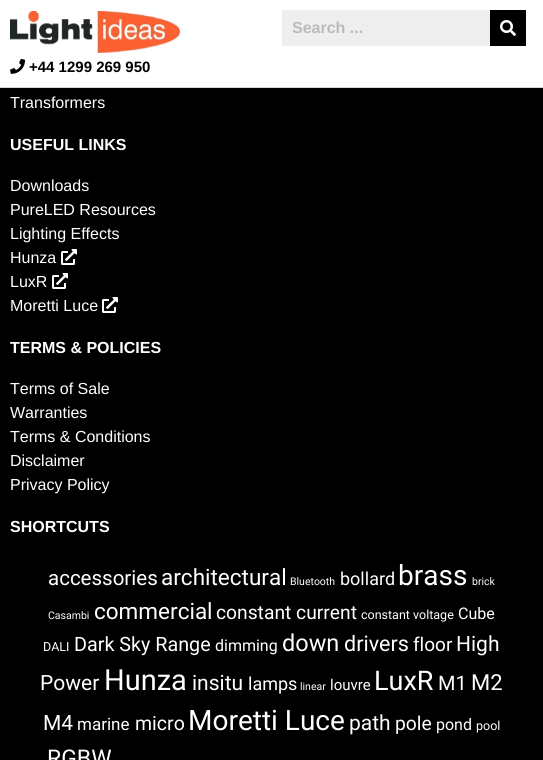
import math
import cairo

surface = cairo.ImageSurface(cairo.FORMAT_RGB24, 543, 760)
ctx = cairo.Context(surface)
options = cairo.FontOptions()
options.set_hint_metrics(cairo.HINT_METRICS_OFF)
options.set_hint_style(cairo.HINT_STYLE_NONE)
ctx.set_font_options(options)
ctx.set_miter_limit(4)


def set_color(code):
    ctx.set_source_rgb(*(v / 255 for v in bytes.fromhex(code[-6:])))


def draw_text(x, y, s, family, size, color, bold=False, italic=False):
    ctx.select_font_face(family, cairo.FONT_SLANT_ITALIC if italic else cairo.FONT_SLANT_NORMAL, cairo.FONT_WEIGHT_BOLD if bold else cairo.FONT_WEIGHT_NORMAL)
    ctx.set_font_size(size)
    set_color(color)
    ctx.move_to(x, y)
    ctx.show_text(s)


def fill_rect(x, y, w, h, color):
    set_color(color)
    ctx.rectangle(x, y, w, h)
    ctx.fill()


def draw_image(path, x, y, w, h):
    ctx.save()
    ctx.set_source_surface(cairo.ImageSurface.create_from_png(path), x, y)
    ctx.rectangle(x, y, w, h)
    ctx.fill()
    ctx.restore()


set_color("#000000")
ctx.paint()
fill_rect(0, 0, 543, 87, "#ffffff")
fill_rect(0, 87, 543, 1, "#d5d5d5")
fill_rect(282, 10, 208, 36, "#eeeeee")
draw_text(292, 33, "Search ...", "Liberation Sans", 16, "#bbbbbb", bold=True)
fill_rect(490, 10, 36, 36, "#000000")
draw_image("assets/img1.png", 500, 20, 16, 16)
draw_image("assets/img2.png", 10, 11, 170, 42)
draw_image("assets/img3.png", 10, 58, 15, 16)
draw_text(29, 72, "+44 1299 269 950", "Liberation Sans", 15, "#000000", bold=True)
draw_text(10, 108, "Transformers", "Liberation Sans", 16, "#ffffff")
draw_text(10, 150, "USEFUL LINKS", "Liberation Sans", 16, "#ffffff", bold=True)
draw_text(10, 191, "Downloads", "Liberation Sans", 16, "#ffffff")
draw_text(10, 215, "PureLED Resources", "Liberation Sans", 16, "#ffffff")
draw_text(10, 239, "Lighting Effects", "Liberation Sans", 16, "#ffffff")
draw_text(10, 263, "Hunza", "Liberation Sans", 16, "#ffffff")
draw_image("assets/img4.png", 61, 249, 16, 16)
draw_text(10, 287, "LuxR", "Liberation Sans", 16, "#ffffff")
draw_image("assets/img4.png", 52, 273, 16, 16)
draw_text(10, 311, "Moretti Luce", "Liberation Sans", 16, "#ffffff")
draw_image("assets/img4.png", 102, 297, 16, 16)
draw_text(10, 353, "TERMS & POLICIES", "Liberation Sans", 16, "#ffffff", bold=True)
draw_text(10, 394, "Terms of Sale", "Liberation Sans", 16, "#ffffff")
draw_text(10, 418, "Warranties", "Liberation Sans", 16, "#ffffff")
draw_text(10, 442, "Terms & Conditions", "Liberation Sans", 16, "#ffffff")
draw_text(10, 466, "Disclaimer", "Liberation Sans", 16, "#ffffff")
draw_text(10, 490, "Privacy Policy", "Liberation Sans", 16, "#ffffff")
draw_text(10, 532, "SHORTCUTS", "Liberation Sans", 16, "#ffffff", bold=True)
draw_text(48, 585, "accessories", "Roboto", 20.5, "#ffffff")
draw_text(161, 585, "architectural", "Roboto", 22.5, "#ffffff")
draw_text(290, 585, "Bluetooth", "Roboto", 10.5, "#ffffff")
draw_text(340, 585, "bollard", "Roboto", 18, "#ffffff")
draw_text(398, 585, "brass", "Roboto", 28, "#ffffff")
draw_text(472, 585, "brick", "Roboto", 10.5, "#ffffff")
draw_text(48, 619, "Casambi", "Roboto", 10.5, "#ffffff")
draw_text(94, 619, "commercial", "Roboto", 22.5, "#ffffff")
draw_text(216, 619, "constant current", "Roboto", 19.25, "#ffffff")
draw_text(361, 619, "constant voltage", "Roboto", 12.5, "#ffffff")
draw_text(458, 619, "Cube", "Roboto", 16, "#ffffff")
draw_text(43, 651, "DALI", "Roboto", 12.5, "#ffffff")
draw_text(74, 651, "Dark Sky Range", "Roboto", 19.75, "#ffffff")
draw_text(215, 651, "dimming", "Roboto", 16, "#ffffff")
draw_text(282, 651, "down", "Roboto", 23.5, "#ffffff")
draw_text(344, 651, "drivers", "Roboto", 21.5, "#ffffff")
draw_text(413, 651, "floor", "Roboto", 19, "#ffffff")
draw_text(456, 651, "High", "Roboto", 21, "#ffffff")
draw_text(40, 690, "Power", "Roboto", 21, "#ffffff")
draw_text(104, 690, "Hunza", "Roboto", 29, "#ffffff")
draw_text(192, 690, "insitu", "Roboto", 21, "#ffffff")
draw_text(248, 690, "lamps", "Roboto", 18, "#ffffff")
draw_text(300, 690, "linear", "Roboto", 10.5, "#ffffff")
draw_text(330, 690, "louvre", "Roboto", 15, "#ffffff")
draw_text(374, 690, "LuxR", "Roboto", 27, "#ffffff")
draw_text(438, 690, "M1", "Roboto", 20, "#ffffff")
draw_text(471, 690, "M2", "Roboto", 22, "#ffffff")
draw_text(43, 730, "M4", "Roboto", 21, "#ffffff")
draw_text(77, 730, "marine", "Roboto", 17, "#ffffff")
draw_text(135, 730, "micro", "Roboto", 19.5, "#ffffff")
draw_text(188, 730, "Moretti Luce", "Roboto", 28, "#ffffff")
draw_text(349, 730, "path", "Roboto", 21, "#ffffff")
draw_text(395, 730, "pole", "Roboto", 19.25, "#ffffff")
draw_text(436, 730, "pond", "Roboto", 16, "#ffffff")
draw_text(476, 730, "pool", "Roboto", 12.5, "#ffffff")
draw_text(47, 766, "RGBW", "Roboto", 23, "#ffffff")
surface.write_to_png("output.png")
